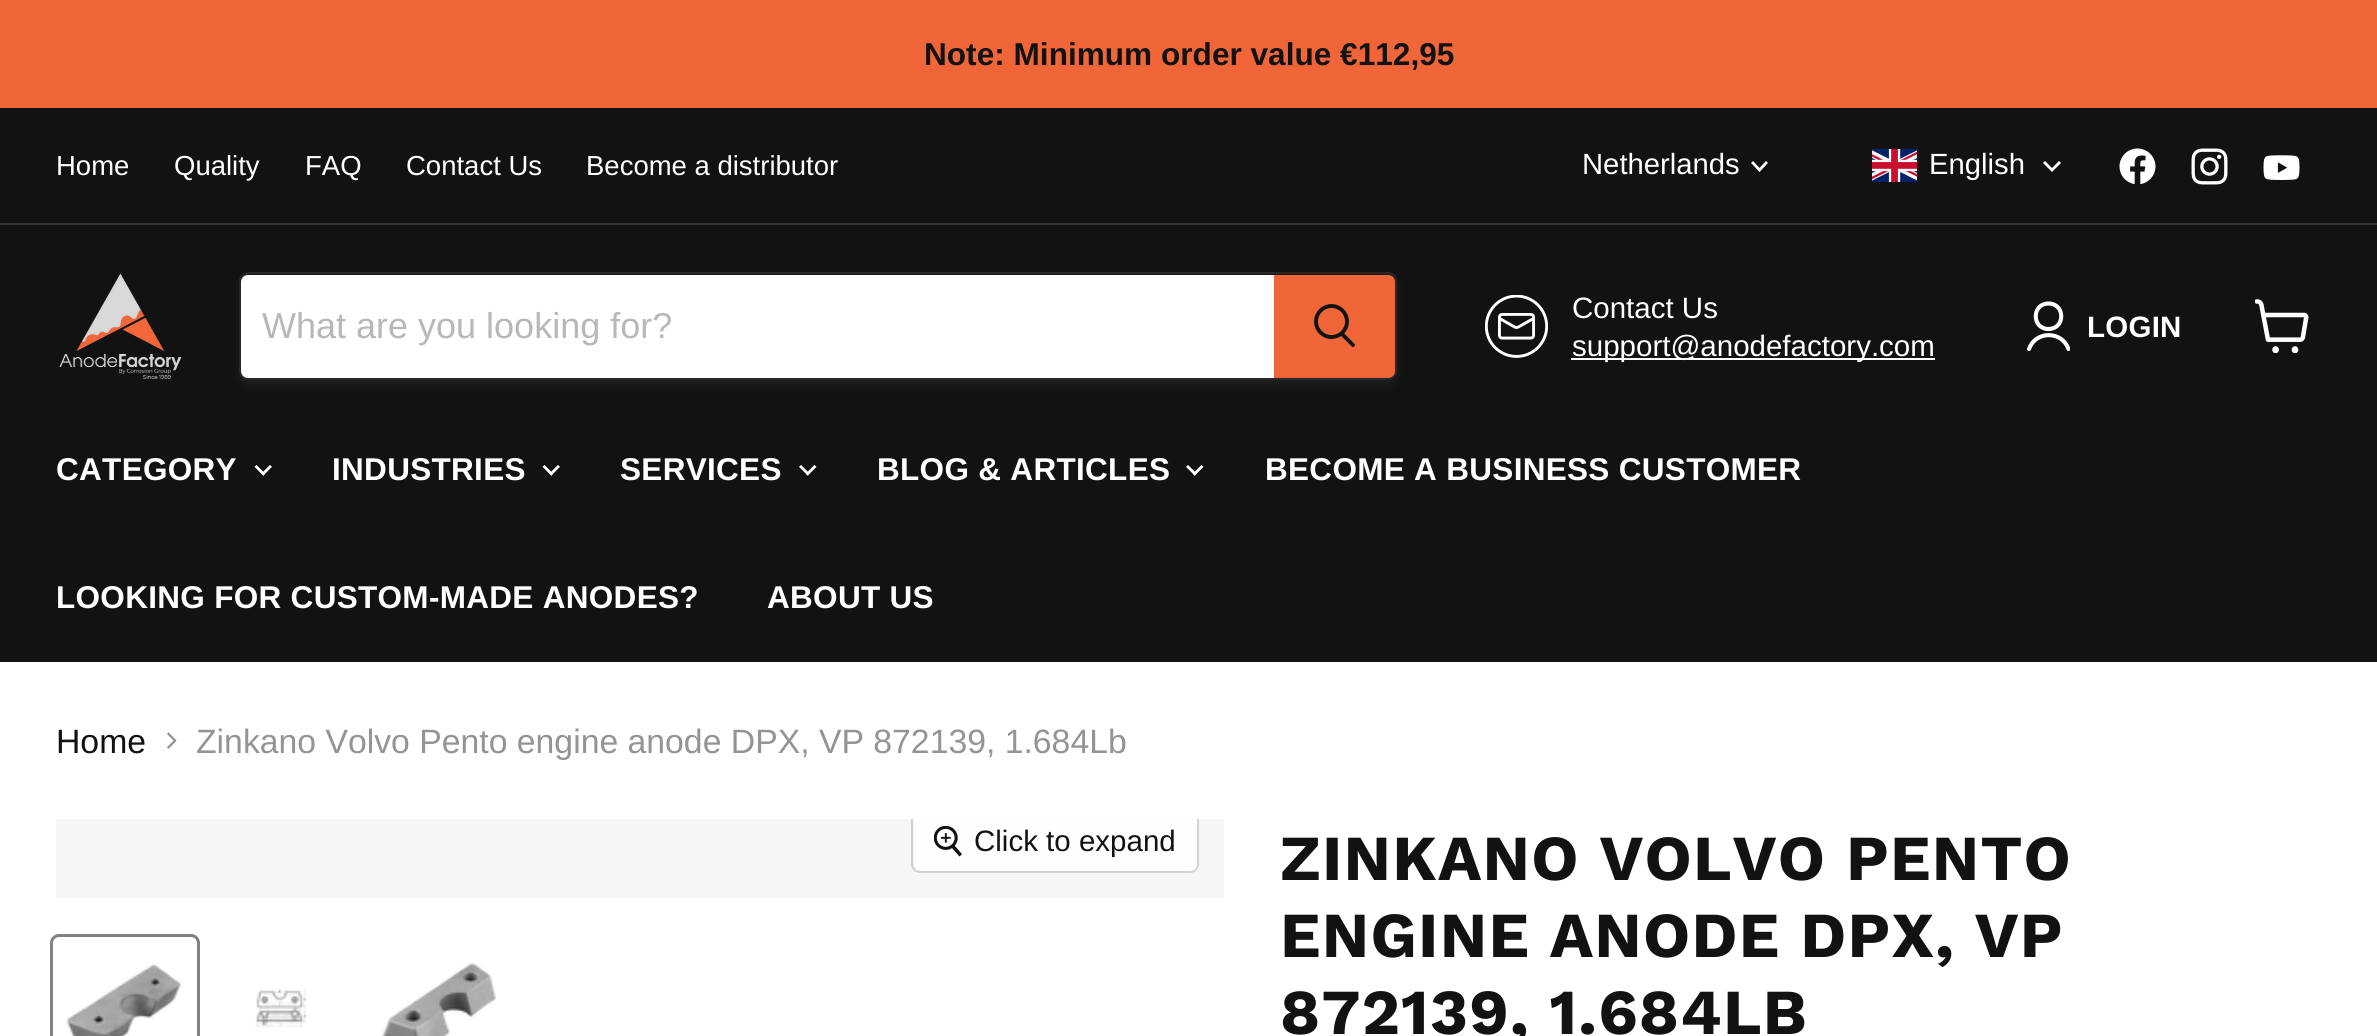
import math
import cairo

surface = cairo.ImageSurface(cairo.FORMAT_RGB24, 2377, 1036)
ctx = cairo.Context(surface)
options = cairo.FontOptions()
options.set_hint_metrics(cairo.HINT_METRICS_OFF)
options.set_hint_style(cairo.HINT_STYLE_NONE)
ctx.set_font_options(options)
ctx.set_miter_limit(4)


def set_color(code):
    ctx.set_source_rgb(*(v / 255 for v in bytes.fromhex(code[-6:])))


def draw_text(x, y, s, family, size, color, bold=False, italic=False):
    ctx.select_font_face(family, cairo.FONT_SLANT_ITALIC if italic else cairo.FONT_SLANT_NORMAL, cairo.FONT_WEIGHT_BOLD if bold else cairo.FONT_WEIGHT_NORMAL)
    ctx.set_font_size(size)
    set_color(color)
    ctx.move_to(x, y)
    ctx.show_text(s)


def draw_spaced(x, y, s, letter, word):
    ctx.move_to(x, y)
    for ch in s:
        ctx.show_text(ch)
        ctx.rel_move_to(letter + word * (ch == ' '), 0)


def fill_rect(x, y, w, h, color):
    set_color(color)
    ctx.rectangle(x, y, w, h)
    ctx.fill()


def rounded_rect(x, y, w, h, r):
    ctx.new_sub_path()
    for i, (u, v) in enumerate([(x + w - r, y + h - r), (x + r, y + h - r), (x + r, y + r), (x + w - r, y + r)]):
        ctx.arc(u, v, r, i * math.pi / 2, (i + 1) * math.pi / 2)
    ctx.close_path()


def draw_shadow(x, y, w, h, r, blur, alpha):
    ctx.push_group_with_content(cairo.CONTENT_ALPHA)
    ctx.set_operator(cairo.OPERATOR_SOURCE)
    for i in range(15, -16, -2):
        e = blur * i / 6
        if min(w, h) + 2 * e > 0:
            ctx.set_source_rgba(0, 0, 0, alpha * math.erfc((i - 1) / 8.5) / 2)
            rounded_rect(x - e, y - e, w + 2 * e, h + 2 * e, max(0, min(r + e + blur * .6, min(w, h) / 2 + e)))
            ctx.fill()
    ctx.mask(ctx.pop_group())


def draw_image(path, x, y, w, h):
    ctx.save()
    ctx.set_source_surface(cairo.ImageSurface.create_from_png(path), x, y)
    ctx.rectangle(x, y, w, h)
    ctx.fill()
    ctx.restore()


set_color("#ffffff")
ctx.paint()
fill_rect(0, 0, 2377, 108, "#f16638")
draw_text(924, 65, "Note: Minimum order value €112,95", "Liberation Sans", 31.6, "#121212", bold=True)
fill_rect(0, 108, 2377, 115, "#121212")
fill_rect(0, 223, 2377, 2, "#353535")
draw_text(56, 175, "Home", "Liberation Sans", 27.5, "#ffffff")
draw_text(174, 175, "Quality", "Liberation Sans", 27.5, "#ffffff")
draw_text(305, 175, "FAQ", "Liberation Sans", 27.5, "#ffffff")
draw_text(406, 175, "Contact Us", "Liberation Sans", 27.5, "#ffffff")
draw_text(586, 175, "Become a distributor", "Liberation Sans", 27.5, "#ffffff")
draw_text(1582, 174, "Netherlands", "Liberation Sans", 29.25, "#ffffff")
ctx.new_path()
ctx.move_to(1759.5, 170)
ctx.line_to(1766, 163)
ctx.move_to(1759.5, 170)
ctx.line_to(1753, 163)
ctx.set_line_width(2.8)
ctx.set_line_cap(cairo.LINE_CAP_SQUARE)
ctx.stroke()
draw_image("assets/img1.png", 1872, 149, 45, 33)
draw_text(1929, 174, "English", "Liberation Sans", 29.25, "#ffffff")
ctx.new_path()
ctx.move_to(2052, 170)
ctx.line_to(2059, 163)
ctx.move_to(2052, 170)
ctx.line_to(2045, 163)
ctx.stroke()
draw_image("assets/img2.png", 2119, 148, 37, 37)
draw_image("assets/img3.png", 2191, 148, 37, 37)
draw_image("assets/img4.png", 2263, 155, 37, 25)
fill_rect(0, 225, 2377, 437, "#121212")
draw_image("assets/img5.png", 59, 273, 123, 107)
set_color("#808080")
draw_shadow(239, 277, 1158, 108, 9, 3.5, 0.11)
rounded_rect(240, 273, 1156, 106, 8)
set_color("#282828")
ctx.set_line_width(2)
ctx.set_line_cap(cairo.LINE_CAP_BUTT)
ctx.stroke()
set_color("#ffffff")
ctx.new_path()
ctx.move_to(248, 275)
ctx.line_to(1274, 275)
ctx.line_to(1274, 378)
ctx.line_to(248, 378)
ctx.curve_to(244, 378, 241, 375, 241, 371)
ctx.line_to(241, 282)
ctx.curve_to(241, 278, 244, 275, 248, 275)
ctx.close_path()
ctx.fill()
draw_text(262, 338, "What are you looking for?", "Liberation Sans", 36, "#b8b8b8")
set_color("#f16638")
ctx.new_path()
ctx.move_to(1275, 276)
ctx.line_to(1388, 276)
ctx.curve_to(1391.5, 276, 1394, 278.5, 1394, 282)
ctx.line_to(1394, 371)
ctx.curve_to(1394, 374.5, 1391.5, 377, 1388, 377)
ctx.line_to(1275, 377)
ctx.close_path()
ctx.fill_preserve()
ctx.stroke()
ctx.new_path()
ctx.move_to(1353, 345)
ctx.line_to(1342, 334)
set_color("#121212")
ctx.set_line_width(3.9)
ctx.set_line_cap(cairo.LINE_CAP_ROUND)
ctx.stroke()
ctx.arc(1331.5, 321.5, 15.5, 0, 2 * math.pi)
ctx.set_line_cap(cairo.LINE_CAP_BUTT)
ctx.stroke()
draw_image("assets/img6.png", 1485, 295, 63, 63)
draw_text(1572, 318, "Contact Us", "Liberation Sans", 29.5, "#ffffff")
fill_rect(1571, 358, 364, 2, "#ffffff")
draw_text(1572, 356, "support@anodefactory.com", "Liberation Sans", 29.5, "#ffffff")
ctx.new_path()
ctx.move_to(2048.5, 329)
ctx.curve_to(2065.5, 329, 2065.5, 303.5, 2048.5, 303.5)
ctx.curve_to(2031.5, 303.5, 2031.5, 329, 2048.5, 329)
ctx.close_path()
ctx.set_line_width(4.1)
ctx.set_line_cap(cairo.LINE_CAP_ROUND)
ctx.set_line_join(cairo.LINE_JOIN_ROUND)
ctx.stroke()
ctx.save()
ctx.rectangle(2025, 299, 45, 54)
ctx.clip()
ctx.new_path()
ctx.move_to(2068.5, 349)
ctx.curve_to(2062, 330.5, 2035.5, 330.5, 2029, 349)
ctx.stroke()
ctx.restore()
ctx.select_font_face("Liberation Sans", cairo.FONT_SLANT_NORMAL, cairo.FONT_WEIGHT_BOLD)
draw_spaced(2087, 337, "LOGIN", 0.25, 0)
draw_image("assets/img7.png", 2255, 299, 54, 54)
ctx.set_font_size(31.5)
draw_spaced(56, 480, "CATEGORY", 0.3, 0)
draw_image("assets/img8.png", 254, 465, 18, 11)
draw_spaced(332, 480, "INDUSTRIES", 0.3, 0)
draw_image("assets/img8.png", 542, 465, 18, 11)
draw_spaced(620, 480, "SERVICES", 0.3, 0)
draw_image("assets/img9.png", 799, 465, 18, 11)
draw_spaced(877, 480, "BLOG & ARTICLES", 0.3, 0)
draw_image("assets/img9.png", 1186, 465, 18, 11)
draw_spaced(1265, 480, "BECOME A BUSINESS CUSTOMER", 0.3, 0)
draw_spaced(56, 608, "LOOKING FOR CUSTOM-MADE ANODES?", 0.3, 0)
draw_spaced(767, 608, "ABOUT US", 0.3, 0)
draw_text(56, 753, "Home", "Liberation Sans", 33.75, "#121212")
draw_image("assets/img10.png", 167, 732, 10, 17)
draw_text(196, 753, "Zinkano Volvo Pento engine anode DPX, VP 872139, 1.684Lb", "Liberation Sans", 33.75, "#949494")
fill_rect(56, 819, 1168, 79, "#f6f6f6")
ctx.save()
ctx.rectangle(56, 819, 1168, 79)
ctx.clip()
rounded_rect(912, 809, 286, 63, 8)
set_color("#d1d1d1")
ctx.set_line_width(2)
ctx.set_line_cap(cairo.LINE_CAP_BUTT)
ctx.set_line_join(cairo.LINE_JOIN_MITER)
ctx.stroke()
ctx.restore()
ctx.set_source_rgba(1, 1, 1, 0.9)
ctx.new_path()
ctx.move_to(914, 819)
ctx.line_to(1197, 819)
ctx.line_to(1197, 864)
ctx.curve_to(1197, 868, 1194, 871, 1190, 871)
ctx.line_to(921, 871)
ctx.curve_to(917, 871, 914, 868, 914, 864)
ctx.close_path()
ctx.fill()
draw_image("assets/img11.png", 934, 826, 28, 31)
draw_text(974, 851, "Click to expand", "Liberation Sans", 29.5, "#121212")
rounded_rect(51.5, 935.5, 147, 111, 7.5)
set_color("#818181")
ctx.set_line_width(3)
ctx.set_line_cap(cairo.LINE_CAP_BUTT)
ctx.set_line_join(cairo.LINE_JOIN_MITER)
ctx.stroke()
draw_image("assets/img12.png", 66, 963, 115, 73)
draw_image("assets/img13.png", 255, 984, 52, 44)
draw_image("assets/img14.png", 381, 963, 115, 73)
ctx.select_font_face("Work Sans", cairo.FONT_SLANT_NORMAL, cairo.FONT_WEIGHT_BOLD)
ctx.set_font_size(64.1)
set_color("#121212")
draw_spaced(1280, 880, "ZINKANO VOLVO PENTO", 1.25, 0)
draw_spaced(1280, 957, "ENGINE ANODE DPX, VP", 1.25, 0)
draw_spaced(1280, 1034, "872139, 1.684LB", 1.25, 0)
surface.write_to_png("output.png")
